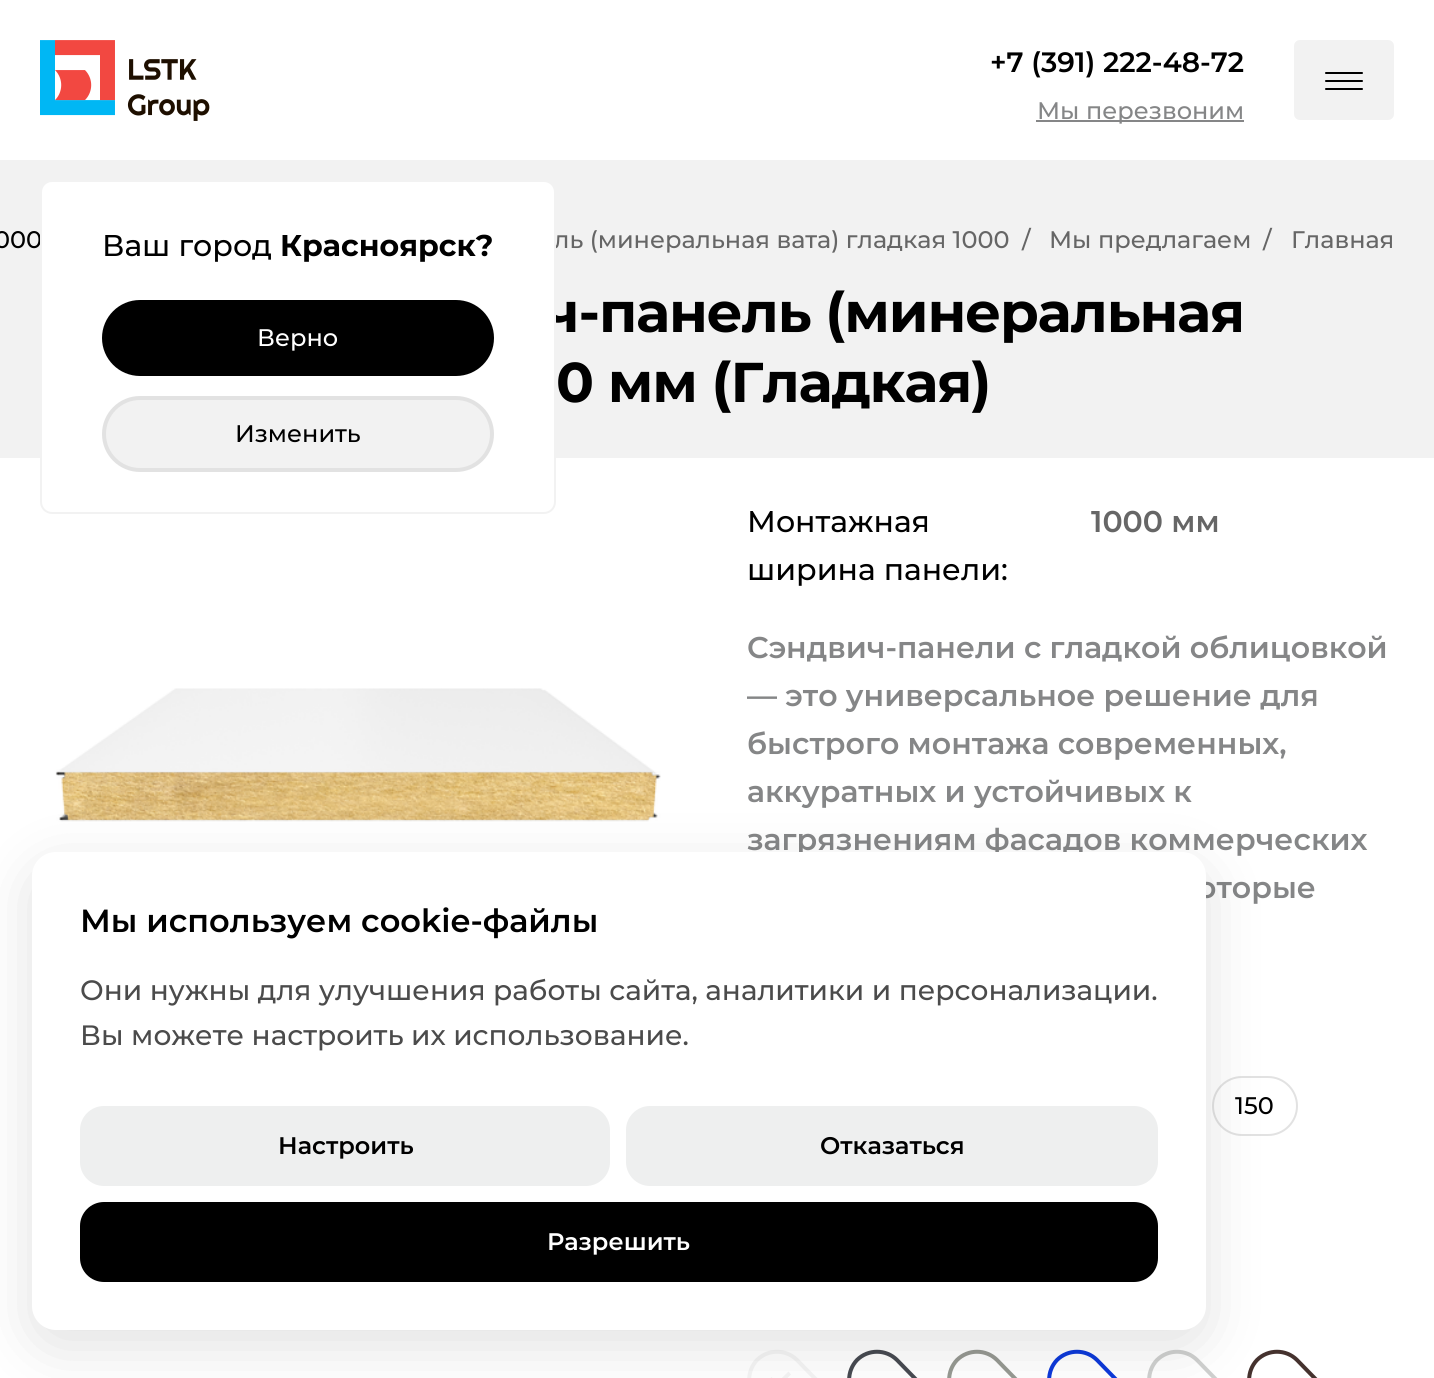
import math
import cairo

surface = cairo.ImageSurface(cairo.FORMAT_RGB24, 1434, 1378)
ctx = cairo.Context(surface)
options = cairo.FontOptions()
options.set_hint_metrics(cairo.HINT_METRICS_OFF)
options.set_hint_style(cairo.HINT_STYLE_NONE)
ctx.set_font_options(options)
ctx.set_miter_limit(4)


def set_color(code):
    ctx.set_source_rgb(*(v / 255 for v in bytes.fromhex(code[-6:])))


def draw_text(x, y, s, family, size, color, bold=False, italic=False):
    ctx.select_font_face(family, cairo.FONT_SLANT_ITALIC if italic else cairo.FONT_SLANT_NORMAL, cairo.FONT_WEIGHT_BOLD if bold else cairo.FONT_WEIGHT_NORMAL)
    ctx.set_font_size(size)
    set_color(color)
    ctx.move_to(x, y)
    ctx.show_text(s)


def draw_spaced(x, y, s, letter, word):
    ctx.move_to(x, y)
    for ch in s:
        ctx.show_text(ch)
        ctx.rel_move_to(letter + word * (ch == ' '), 0)


def fill_rect(x, y, w, h, color):
    set_color(color)
    ctx.rectangle(x, y, w, h)
    ctx.fill()


def rounded_rect(x, y, w, h, r):
    ctx.new_sub_path()
    for i, (u, v) in enumerate([(x + w - r, y + h - r), (x + r, y + h - r), (x + r, y + r), (x + w - r, y + r)]):
        ctx.arc(u, v, r, i * math.pi / 2, (i + 1) * math.pi / 2)
    ctx.close_path()


def draw_shadow(x, y, w, h, r, blur, alpha):
    ctx.push_group_with_content(cairo.CONTENT_ALPHA)
    ctx.set_operator(cairo.OPERATOR_SOURCE)
    for i in range(15, -16, -2):
        e = blur * i / 6
        if min(w, h) + 2 * e > 0:
            ctx.set_source_rgba(0, 0, 0, alpha * math.erfc((i - 1) / 8.5) / 2)
            rounded_rect(x - e, y - e, w + 2 * e, h + 2 * e, max(0, min(r + e + blur * .6, min(w, h) / 2 + e)))
            ctx.fill()
    ctx.mask(ctx.pop_group())


def draw_image(path, x, y, w, h):
    ctx.save()
    ctx.set_source_surface(cairo.ImageSurface.create_from_png(path), x, y)
    ctx.rectangle(x, y, w, h)
    ctx.fill()
    ctx.restore()


set_color("#f2f2f2")
ctx.paint()
fill_rect(0, 0, 1434, 160, "#ffffff")
draw_image("assets/img1.png", 40, 40, 170, 81)
draw_text(990, 72, "+7 (391) 222-48-72", "Montserrat SemiBold", 28, "#000000")
fill_rect(1036, 120, 208, 2, "#858687")
draw_text(1037, 119, "Мы перезвоним", "Montserrat Medium", 24, "#858687")
set_color("#f2f2f2")
rounded_rect(1294, 40, 100, 80, 6)
ctx.fill()
ctx.new_path()
ctx.move_to(1362, 81)
ctx.line_to(1326, 81)
ctx.move_to(1362, 73)
ctx.line_to(1326, 73)
ctx.move_to(1362, 89)
ctx.line_to(1326, 89)
set_color("#000000")
ctx.set_line_cap(cairo.LINE_CAP_ROUND)
ctx.set_line_join(cairo.LINE_JOIN_ROUND)
ctx.stroke()
draw_text(-6, 248, "000", "Montserrat Medium", 24, "#000000")
draw_text(554, 248, "ль (минеральная вата) гладкая 1000", "Montserrat Medium", 24, "#666666")
ctx.select_font_face("Montserrat", cairo.FONT_SLANT_NORMAL, cairo.FONT_WEIGHT_BOLD)
ctx.set_font_size(56)
set_color("#000000")
draw_spaced(544, 332, "ч-панель (минеральная", -1.1, 0)
fill_rect(0, 458, 1434, 920, "#ffffff")
rounded_rect(41, 181, 514, 332, 11)
ctx.fill_preserve()
set_color("#f2f2f2")
ctx.set_line_cap(cairo.LINE_CAP_BUTT)
ctx.set_line_join(cairo.LINE_JOIN_MITER)
ctx.stroke()
draw_text(102, 256, "Ваш город", "Montserrat Medium", 30, "#000000")
draw_text(280, 256, "Красноярск?", "Montserrat", 30, "#000000", bold=True)
rounded_rect(104, 302, 388, 72, 36)
ctx.fill_preserve()
ctx.set_line_width(4)
ctx.stroke()
draw_text(257, 346, "Верно", "Montserrat Medium", 24, "#ffffff")
set_color("#f2f2f2")
rounded_rect(104, 398, 388, 72, 36)
ctx.fill_preserve()
set_color("#e2e2e2")
ctx.stroke()
draw_text(235, 442, "Изменить", "Montserrat Medium", 24, "#000000")
draw_text(1022, 248, "/", "Montserrat Medium", 24, "#666666")
draw_text(1049, 248, "Мы предлагаем", "Montserrat Medium", 24, "#666666")
draw_text(1263, 248, "/", "Montserrat Medium", 24, "#666666")
draw_text(1291, 248, "Главная", "Montserrat Medium", 24, "#666666")
ctx.select_font_face("Montserrat", cairo.FONT_SLANT_NORMAL, cairo.FONT_WEIGHT_BOLD)
ctx.set_font_size(56)
set_color("#000000")
draw_spaced(556, 402, "0 мм (Гладкая)", -1.1, 0)
draw_image("assets/img2.png", 55, 688, 606, 134)
draw_text(747, 532, "Монтажная", "Montserrat Medium", 30, "#000000")
draw_text(747, 580, "ширина панели:", "Montserrat Medium", 30, "#000000")
draw_text(1091, 532, "1000 мм", "Montserrat SemiBold", 30, "#666666")
draw_text(747, 658, "Сэндвич-панели с гладкой облицовкой", "Montserrat SemiBold", 30, "#858687")
draw_text(747, 706, "— это универсальное решение для", "Montserrat SemiBold", 30, "#858687")
draw_text(747, 754, "быстрого монтажа современных,", "Montserrat SemiBold", 30, "#858687")
draw_text(747, 802, "аккуратных и устойчивых к", "Montserrat SemiBold", 30, "#858687")
draw_text(747, 850, "загрязнениям фасадов коммерческих", "Montserrat SemiBold", 30, "#858687")
draw_text(1197, 898, "оторые", "Montserrat SemiBold", 30, "#858687")
rounded_rect(1213, 1077, 84, 58, 29)
set_color("#e2e2e2")
ctx.set_line_width(2)
ctx.stroke()
draw_text(1235, 1114, "150", "Montserrat Medium", 24, "#000000")
ctx.new_path()
ctx.move_to(797, 1360)
ctx.line_to(816.5, 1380)
ctx.line_to(797, 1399.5)
ctx.curve_to(786, 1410.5, 768, 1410.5, 757, 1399.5)
ctx.curve_to(746.5, 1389, 746.5, 1371, 757, 1360)
ctx.curve_to(768, 1349, 786, 1349, 797, 1360)
ctx.close_path()
set_color("#f4f4f4")
ctx.set_line_width(4)
ctx.stroke()
ctx.new_path()
ctx.move_to(771.5, 1377)
ctx.line_to(780, 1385.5)
ctx.line_to(777, 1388.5)
ctx.line_to(768.5, 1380)
ctx.close_path()
ctx.move_to(788.5, 1371.5)
ctx.line_to(791, 1374.5)
ctx.line_to(777, 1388.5)
ctx.line_to(774, 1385.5)
ctx.close_path()
ctx.fill()
ctx.new_path()
ctx.move_to(897, 1360)
ctx.line_to(916.5, 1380)
ctx.line_to(897, 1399.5)
ctx.curve_to(886, 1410.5, 868, 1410.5, 857, 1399.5)
ctx.curve_to(846.5, 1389, 846.5, 1371, 857, 1360)
ctx.curve_to(868, 1349, 886, 1349, 897, 1360)
ctx.close_path()
set_color("#474a51")
ctx.stroke()
ctx.new_path()
ctx.move_to(997, 1360)
ctx.line_to(1016.5, 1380)
ctx.line_to(997, 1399.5)
ctx.curve_to(986, 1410.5, 968, 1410.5, 957, 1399.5)
ctx.curve_to(946.5, 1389, 946.5, 1371, 957, 1360)
ctx.curve_to(968, 1349, 986, 1349, 997, 1360)
ctx.close_path()
set_color("#969992")
ctx.stroke()
ctx.new_path()
ctx.move_to(1097, 1360)
ctx.line_to(1116.5, 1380)
ctx.line_to(1097, 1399.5)
ctx.curve_to(1086, 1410.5, 1068, 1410.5, 1057, 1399.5)
ctx.curve_to(1046.5, 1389, 1046.5, 1371, 1057, 1360)
ctx.curve_to(1068, 1349, 1086, 1349, 1097, 1360)
ctx.close_path()
set_color("#0d39d9")
ctx.stroke()
ctx.new_path()
ctx.move_to(1197, 1360)
ctx.line_to(1216.5, 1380)
ctx.line_to(1197, 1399.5)
ctx.curve_to(1186, 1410.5, 1168, 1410.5, 1157, 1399.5)
ctx.curve_to(1146.5, 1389, 1146.5, 1371, 1157, 1360)
ctx.curve_to(1168, 1349, 1186, 1349, 1197, 1360)
ctx.close_path()
set_color("#cfd0cf")
ctx.stroke()
ctx.new_path()
ctx.move_to(1297, 1360)
ctx.line_to(1316.5, 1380)
ctx.line_to(1297, 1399.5)
ctx.curve_to(1286, 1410.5, 1268, 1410.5, 1257, 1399.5)
ctx.curve_to(1246.5, 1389, 1246.5, 1371, 1257, 1360)
ctx.curve_to(1268, 1349, 1286, 1349, 1297, 1360)
ctx.close_path()
set_color("#45322e")
ctx.stroke()
set_color("#000000")
draw_shadow(32, 868, 1174, 478, 24, 30, 0.12)
set_color("#ffffff")
rounded_rect(32, 852, 1174, 478, 24)
ctx.fill()
draw_text(80, 932, "Мы используем cookie-файлы", "Montserrat SemiBold", 32, "#000000")
draw_text(80, 1000, "Они нужны для улучшения работы сайта, аналитики и персонализации.", "Montserrat Medium", 28, "#4b4b4b")
draw_text(80, 1045, "Вы можете настроить их использование.", "Montserrat Medium", 28, "#4b4b4b")
set_color("#eeefef")
rounded_rect(80, 1106, 530, 80, 24)
ctx.fill()
draw_text(278, 1154, "Настроить", "Montserrat SemiBold", 24, "#000000")
set_color("#eeefef")
rounded_rect(626, 1106, 532, 80, 24)
ctx.fill()
draw_text(820, 1154, "Отказаться", "Montserrat SemiBold", 24, "#000000")
rounded_rect(80, 1202, 1078, 80, 24)
ctx.fill()
draw_text(547, 1250, "Разрешить", "Montserrat SemiBold", 24, "#ffffff")
surface.write_to_png("output.png")
